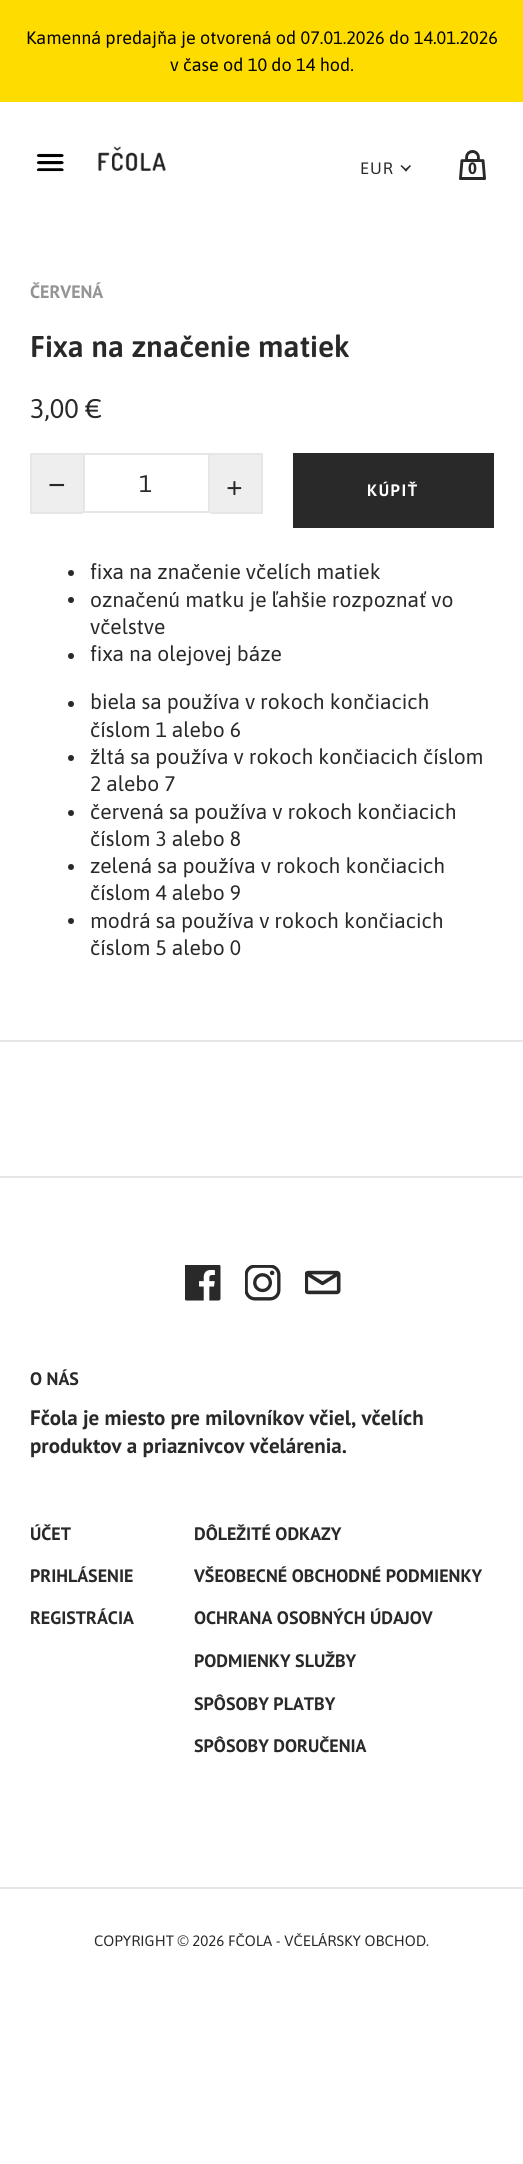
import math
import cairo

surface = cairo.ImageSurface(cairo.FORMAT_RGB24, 523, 2164)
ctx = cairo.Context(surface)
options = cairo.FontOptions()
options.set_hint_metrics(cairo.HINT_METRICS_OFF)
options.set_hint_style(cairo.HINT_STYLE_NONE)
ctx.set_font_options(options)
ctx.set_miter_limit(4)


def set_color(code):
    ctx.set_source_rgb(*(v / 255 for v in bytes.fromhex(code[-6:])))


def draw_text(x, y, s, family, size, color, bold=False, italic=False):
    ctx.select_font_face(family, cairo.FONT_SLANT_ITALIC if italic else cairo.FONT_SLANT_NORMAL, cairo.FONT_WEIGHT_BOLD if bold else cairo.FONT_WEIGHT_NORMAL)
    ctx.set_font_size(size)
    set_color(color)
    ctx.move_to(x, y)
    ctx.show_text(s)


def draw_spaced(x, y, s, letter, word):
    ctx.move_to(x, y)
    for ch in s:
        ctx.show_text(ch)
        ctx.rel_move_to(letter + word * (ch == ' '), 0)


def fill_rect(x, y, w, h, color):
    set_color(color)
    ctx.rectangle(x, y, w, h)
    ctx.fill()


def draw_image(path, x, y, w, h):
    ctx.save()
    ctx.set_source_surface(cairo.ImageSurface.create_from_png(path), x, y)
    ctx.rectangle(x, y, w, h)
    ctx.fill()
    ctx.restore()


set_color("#ffffff")
ctx.paint()
fill_rect(0, 0, 523, 102, "#ffdc00")
draw_text(26, 44, "Kamenná predajňa je otvorená od 07.01.2026 do 14.01.2026", "Asap", 18, "#000000")
draw_text(170, 71, "v čase od 10 do 14 hod.", "Asap", 18, "#000000")
draw_image("assets/img1.png", 36, 153, 28, 19)
draw_image("assets/img2.png", 98, 146, 68, 26)
ctx.set_font_size(16.5)
set_color("#292929")
draw_spaced(360, 174, "EUR", 1, 0)
ctx.new_path()
ctx.move_to(404.5, 170)
ctx.line_to(410, 165)
ctx.line_to(411, 166)
ctx.line_to(406, 171.5)
ctx.close_path()
ctx.fill()
ctx.new_path()
ctx.move_to(400.5, 166)
ctx.line_to(401.5, 165)
ctx.line_to(407, 170)
ctx.line_to(406, 171.5)
ctx.close_path()
ctx.fill()
draw_image("assets/img3.png", 459, 150, 27, 30)
draw_text(468, 174, "0", "Asap", 16.5, "#292929", bold=True)
draw_text(30, 298, "ČERVENÁ", "PT Sans", 18, "#949494", bold=True)
draw_text(30, 357, "Fixa na značenie matiek", "Asap SemiBold", 30, "#292929")
draw_text(30, 418, "3,00 €", "Asap", 27, "#292929")
fill_rect(32, 455, 51, 57, "#eeeeee")
fill_rect(30, 453, 53, 2, "#e6e6e6")
fill_rect(30, 512, 53, 2, "#e6e6e6")
fill_rect(30, 453, 2, 60, "#e6e6e6")
draw_text(48, 495, "−", "Liberation Sans", 30, "#292929")
ctx.rectangle(84, 454, 125, 58)
set_color("#e6e6e6")
ctx.stroke()
draw_text(139, 492, "1", "Asap", 24, "#292929")
fill_rect(210, 455, 51, 57, "#eeeeee")
fill_rect(210, 453, 53, 2, "#e6e6e6")
fill_rect(261, 453, 2, 60, "#e6e6e6")
fill_rect(210, 512, 53, 2, "#e6e6e6")
draw_text(226, 495, "+", "Asap", 30, "#292929")
fill_rect(293, 453, 201, 75, "#292929")
ctx.select_font_face("PT Sans", cairo.FONT_SLANT_NORMAL, cairo.FONT_WEIGHT_BOLD)
ctx.set_font_size(16.5)
set_color("#ffffff")
draw_spaced(367, 496, "KÚPIŤ", 1.5, 0)
set_color("#292929")
ctx.new_path()
ctx.arc(71, 573, 3, 0, 2 * math.pi)
ctx.fill()
draw_text(90, 579, "fixa na značenie včelích matiek", "Asap", 21, "#292929")
ctx.new_path()
ctx.arc(71, 600, 3, 0, 2 * math.pi)
ctx.fill()
draw_text(90, 607, "označenú matku je ľahšie rozpoznať vo", "Asap", 21, "#292929")
draw_text(90, 634, "včelstve", "Asap", 21, "#292929")
ctx.new_path()
ctx.arc(71, 656, 3, 0, 2 * math.pi)
ctx.fill()
draw_text(90, 661, "fixa na olejovej báze", "Asap", 21, "#292929")
ctx.new_path()
ctx.arc(71, 704, 3, 0, 2 * math.pi)
ctx.fill()
draw_text(90, 709, "biela sa používa v rokoch končiacich", "Asap", 21, "#292929")
draw_text(90, 737, "číslom 1 alebo 6", "Asap", 21, "#292929")
ctx.new_path()
ctx.arc(71, 758, 3, 0, 2 * math.pi)
ctx.fill()
draw_text(90, 764, "žltá sa používa v rokoch končiacich číslom", "Asap", 21, "#292929")
draw_text(90, 791, "2 alebo 7", "Asap", 21, "#292929")
ctx.new_path()
ctx.arc(71, 813, 3, 0, 2 * math.pi)
ctx.fill()
draw_text(90, 819, "červená sa používa v rokoch končiacich", "Asap", 21, "#292929")
draw_text(90, 846, "číslom 3 alebo 8", "Asap", 21, "#292929")
ctx.new_path()
ctx.arc(71, 867, 3, 0, 2 * math.pi)
ctx.fill()
draw_text(90, 873, "zelená sa používa v rokoch končiacich", "Asap", 21, "#292929")
draw_text(90, 900, "číslom 4 alebo 9", "Asap", 21, "#292929")
ctx.new_path()
ctx.arc(71, 921, 3, 0, 2 * math.pi)
ctx.fill()
draw_text(90, 928, "modrá sa používa v rokoch končiacich", "Asap", 21, "#292929")
draw_text(90, 955, "číslom 5 alebo 0", "Asap", 21, "#292929")
fill_rect(0, 1040, 523, 2, "#e6e6e6")
fill_rect(0, 1176, 523, 2, "#e6e6e6")
draw_image("assets/img4.png", 185, 1265, 36, 36)
draw_image("assets/img5.png", 245, 1265, 36, 36)
draw_image("assets/img6.png", 305, 1270, 36, 25)
draw_text(30, 1385, "O NÁS", "PT Sans", 18, "#292929", bold=True)
draw_text(30, 1425, "Fčola je miesto pre milovníkov včiel, včelích", "PT Sans", 21, "#292929", bold=True)
draw_text(30, 1453, "produktov a priaznivcov včelárenia.", "PT Sans", 21, "#292929", bold=True)
draw_text(30, 1540, "ÚČET", "PT Sans", 18, "#292929", bold=True)
draw_text(30, 1582, "PRIHLÁSENIE", "PT Sans", 18, "#292929", bold=True)
draw_text(30, 1624, "REGISTRÁCIA", "PT Sans", 18, "#292929", bold=True)
draw_text(194, 1540, "DÔLEŽITÉ ODKAZY", "PT Sans", 18, "#292929", bold=True)
draw_text(194, 1582, "VŠEOBECNÉ OBCHODNÉ PODMIENKY", "PT Sans", 18, "#292929", bold=True)
draw_text(194, 1624, "OCHRANA OSOBNÝCH ÚDAJOV", "PT Sans", 18, "#292929", bold=True)
draw_text(194, 1667, "PODMIENKY SLUŽBY", "PT Sans", 18, "#292929", bold=True)
draw_text(194, 1710, "SPÔSOBY PLATBY", "PT Sans", 18, "#292929", bold=True)
draw_text(194, 1752, "SPÔSOBY DORUČENIA", "PT Sans", 18, "#292929", bold=True)
fill_rect(0, 1887, 523, 2, "#e6e6e6")
draw_text(94, 1946, "COPYRIGHT © 2026 FČOLA - VČELÁRSKY OBCHOD.", "Asap", 15, "#292929")
surface.write_to_png("output.png")
